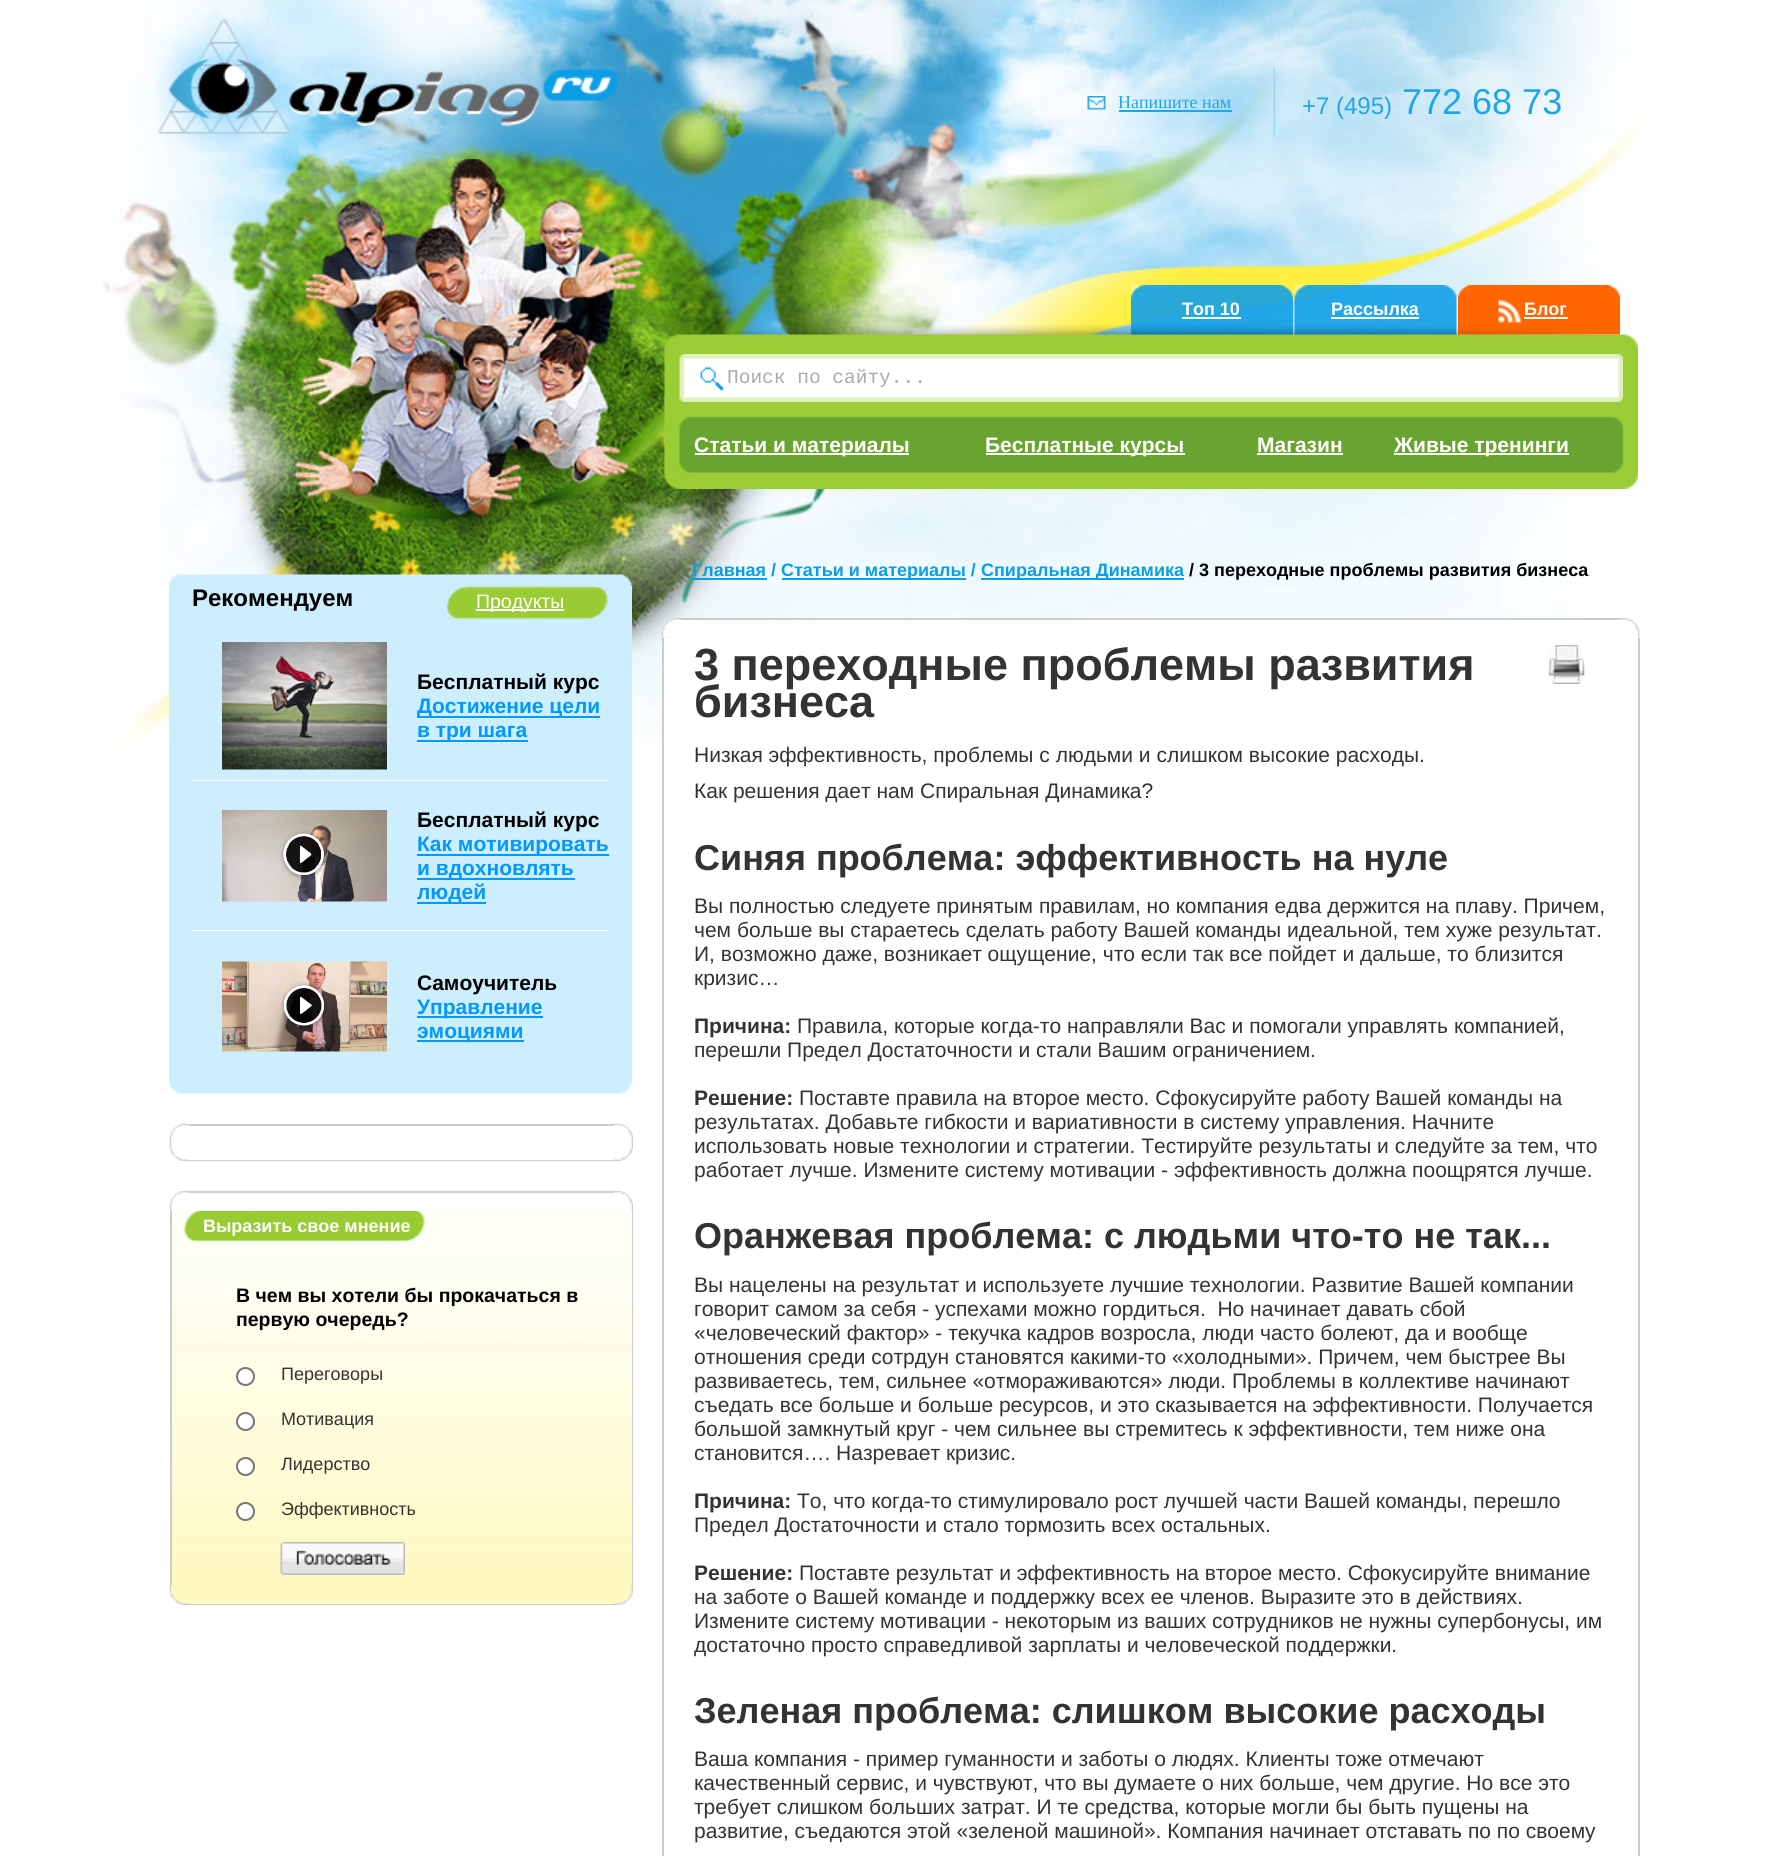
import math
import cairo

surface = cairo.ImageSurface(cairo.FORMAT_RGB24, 1792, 1856)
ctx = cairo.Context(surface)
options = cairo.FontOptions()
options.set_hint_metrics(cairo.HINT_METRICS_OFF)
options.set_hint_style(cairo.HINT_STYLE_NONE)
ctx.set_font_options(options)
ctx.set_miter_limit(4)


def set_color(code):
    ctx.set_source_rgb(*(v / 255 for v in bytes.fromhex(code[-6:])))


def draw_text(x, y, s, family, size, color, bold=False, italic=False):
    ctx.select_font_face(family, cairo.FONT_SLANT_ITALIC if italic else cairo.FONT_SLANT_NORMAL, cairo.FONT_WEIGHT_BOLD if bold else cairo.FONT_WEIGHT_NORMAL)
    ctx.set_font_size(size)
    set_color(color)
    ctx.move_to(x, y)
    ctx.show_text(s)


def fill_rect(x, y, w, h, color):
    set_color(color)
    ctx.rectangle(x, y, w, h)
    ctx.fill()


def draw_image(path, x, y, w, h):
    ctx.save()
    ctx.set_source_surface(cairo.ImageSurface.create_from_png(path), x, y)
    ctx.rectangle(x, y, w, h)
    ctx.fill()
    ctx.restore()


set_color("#ffffff")
ctx.paint()
draw_image("assets/img1.png", 101, 0, 1555, 744)
draw_image("assets/img2.png", 154, 17, 465, 136)
draw_image("assets/img3.png", 1087, 96, 19, 14)
draw_text(1118, 108, "Напишите нам", "Liberation Serif", 18, "#1fa6e9")
fill_rect(1119, 110, 113, 2, "#1fa6e9")
draw_image("assets/img4.png", 1273, 67, 2, 70)
draw_text(1302, 114, "+7 (495)", "Liberation Sans", 24, "#1fa6e9")
draw_text(1402, 114, "772 68 73", "Liberation Sans", 36, "#1fa6e9")
draw_image("assets/img5.png", 664, 325, 974, 164)
draw_image("assets/img6.png", 1131, 285, 162, 50)
draw_text(1182, 315, "Топ 10", "Liberation Sans", 18, "#ffffff", bold=True)
fill_rect(1182, 317, 59, 2, "#ffffff")
draw_image("assets/img7.png", 1294, 285, 163, 50)
draw_text(1331, 315, "Рассылка", "Liberation Sans", 18, "#ffffff", bold=True)
fill_rect(1331, 317, 88, 2, "#ffffff")
draw_image("assets/img8.png", 1458, 285, 162, 50)
draw_text(1524, 315, "Блог", "Liberation Sans", 18, "#ffffff", bold=True)
fill_rect(1524, 317, 44, 2, "#ffffff")
draw_image("assets/img9.png", 679, 354, 944, 48)
draw_text(727, 383, "Поиск по сайту...", "Liberation Mono", 19.5, "#aaaaaa")
fill_rect(695, 453, 214, 2, "#ffffff")
draw_text(694, 452, "Статьи и материалы", "Liberation Sans", 21, "#ffffff", bold=True)
fill_rect(986, 453, 199, 2, "#ffffff")
draw_text(985, 452, "Бесплатные курсы", "Liberation Sans", 21, "#ffffff", bold=True)
draw_text(1257, 452, "Магазин", "Liberation Sans", 21, "#ffffff", bold=True)
fill_rect(1257, 453, 86, 2, "#ffffff")
fill_rect(1394, 453, 175, 2, "#ffffff")
draw_text(1394, 452, "Живые тренинги", "Liberation Sans", 21, "#ffffff", bold=True)
draw_image("assets/img10.png", 169, 574, 463, 12)
fill_rect(169, 586, 463, 496, "#cdeeff")
draw_text(192, 606, "Рекомендуем", "Liberation Sans", 24, "#000000", bold=True)
draw_image("assets/img11.png", 445, 586, 164, 34)
fill_rect(476, 609, 88, 2, "#ffffff")
draw_text(476, 608, "Продукты", "Liberation Sans", 19.5, "#ffffff")
fill_rect(192, 780, 417, 1, "#ffffff")
draw_image("assets/img12.png", 222, 642, 165, 128)
draw_text(417, 689, "Бесплатный курс", "Liberation Sans", 21, "#000000", bold=True)
fill_rect(417, 716, 183, 2, "#0099ff")
draw_text(417, 713, "Достижение цели", "Liberation Sans", 21, "#0099ff", bold=True)
fill_rect(417, 740, 111, 2, "#0099ff")
draw_text(417, 737, "в три шага", "Liberation Sans", 21, "#0099ff", bold=True)
fill_rect(192, 930, 417, 1, "#ffffff")
draw_image("assets/img13.png", 222, 810, 165, 92)
draw_text(417, 827, "Бесплатный курс", "Liberation Sans", 21, "#000000", bold=True)
fill_rect(417, 854, 192, 2, "#0099ff")
draw_text(417, 851, "Как мотивировать", "Liberation Sans", 21, "#0099ff", bold=True)
fill_rect(417, 878, 158, 2, "#0099ff")
draw_text(417, 875, "и вдохновлять", "Liberation Sans", 21, "#0099ff", bold=True)
fill_rect(417, 902, 69, 2, "#0099ff")
draw_text(417, 899, "людей", "Liberation Sans", 21, "#0099ff", bold=True)
draw_image("assets/img14.png", 222, 961, 165, 91)
draw_text(417, 990, "Самоучитель", "Liberation Sans", 21, "#000000", bold=True)
fill_rect(417, 1016, 126, 2, "#0099ff")
draw_text(417, 1014, "Управление", "Liberation Sans", 21, "#0099ff", bold=True)
fill_rect(417, 1040, 107, 2, "#0099ff")
draw_text(417, 1038, "эмоциями", "Liberation Sans", 21, "#0099ff", bold=True)
draw_image("assets/img15.png", 169, 1082, 463, 12)
draw_image("assets/img16.png", 613, 1123, 20, 19)
draw_image("assets/img19.png", 169, 1141, 20, 20)
draw_image("assets/img17.png", 169, 1123, 20, 20)
fill_rect(189, 1124, 425, 2, "#cccccc")
draw_image("assets/img18.png", 614, 1142, 19, 19)
fill_rect(189, 1160, 425, 1, "#cccccc")
draw_image("assets/img22.png", 169, 1209, 463, 378)
fill_rect(632, 1209, 1, 378, "#cccccc")
draw_image("assets/img20.png", 614, 1191, 19, 20)
fill_rect(170, 1209, 2, 378, "#cccccc")
draw_image("assets/img23.png", 183, 1210, 243, 32)
draw_image("assets/img21.png", 169, 1191, 20, 20)
fill_rect(189, 1209, 425, 2, "#ffffff")
fill_rect(189, 1191, 425, 2, "#cccccc")
draw_text(203, 1232, "Выразить свое мнение", "Liberation Sans", 18, "#ffffff", bold=True)
draw_text(236, 1302, "В чем вы хотели бы прокачаться в", "Liberation Sans", 19.5, "#000000", bold=True)
draw_text(236, 1326, "первую очередь?", "Liberation Sans", 19.5, "#000000", bold=True)
set_color("#ffffff")
ctx.new_path()
ctx.arc(245.5, 1376.5, 8.5, 0, 2 * math.pi)
ctx.fill_preserve()
set_color("#767676")
ctx.stroke()
draw_text(281, 1380, "Переговоры", "Liberation Sans", 18, "#333333")
set_color("#ffffff")
ctx.new_path()
ctx.arc(245.5, 1421.5, 8.5, 0, 2 * math.pi)
ctx.fill_preserve()
set_color("#767676")
ctx.stroke()
draw_text(281, 1425, "Мотивация", "Liberation Sans", 18, "#333333")
set_color("#ffffff")
ctx.new_path()
ctx.arc(245.5, 1466.5, 8.5, 0, 2 * math.pi)
ctx.fill_preserve()
set_color("#767676")
ctx.stroke()
draw_text(281, 1470, "Лидерство", "Liberation Sans", 18, "#333333")
set_color("#ffffff")
ctx.new_path()
ctx.arc(245.5, 1511.5, 8.5, 0, 2 * math.pi)
ctx.fill_preserve()
set_color("#767676")
ctx.stroke()
draw_text(281, 1515, "Эффективность", "Liberation Sans", 18, "#333333")
draw_image("assets/img24.png", 280, 1542, 125, 33)
draw_image("assets/img25.png", 613, 1585, 20, 20)
draw_image("assets/img26.png", 169, 1585, 20, 20)
fill_rect(189, 1586, 425, 18, "#fffac2")
fill_rect(189, 1604, 425, 1, "#cccccc")
draw_text(692, 576, "Главная /", "Liberation Sans", 18, "#0b9ee7", bold=True)
fill_rect(692, 578, 75, 2, "#0b9ee7")
fill_rect(782, 578, 184, 2, "#0b9ee7")
draw_text(781, 576, "Статьи и материалы /", "Liberation Sans", 18, "#0b9ee7", bold=True)
fill_rect(981, 578, 203, 2, "#0b9ee7")
draw_text(981, 576, "Спиральная Динамика", "Liberation Sans", 18, "#0b9ee7", bold=True)
draw_text(1189, 576, "/ 3 переходные проблемы развития бизнеса", "Liberation Sans", 18, "#000000", bold=True)
draw_image("assets/img27.png", 1620, 618, 20, 20)
draw_image("assets/img28.png", 661, 618, 20, 20)
fill_rect(681, 620, 895, 18, "#ffffff")
fill_rect(681, 618, 939, 2, "#cccccc")
fill_rect(664, 638, 912, 106, "#ffffff")
fill_rect(1638, 638, 2, 1218, "#cccccc")
fill_rect(662, 638, 2, 1218, "#cccccc")
draw_text(694, 680, "3 переходные проблемы развития", "Liberation Sans", 45, "#333333", bold=True)
draw_text(694, 717, "бизнеса", "Liberation Sans", 45, "#333333", bold=True)
draw_image("assets/img29.png", 1548, 645, 38, 39)
draw_text(694, 762, "Низкая эффективность, проблемы с людьми и слишком высокие расходы.", "Liberation Sans", 21, "#333333")
draw_text(694, 798, "Как решения дает нам Спиральная Динамика?", "Liberation Sans", 21, "#333333")
draw_text(694, 870, "Синяя проблема: эффективность на нуле", "Liberation Sans", 36, "#333333", bold=True)
draw_text(694, 913, "Вы полностью следуете принятым правилам, но компания едва держится на плаву. Причем,", "Liberation Sans", 21, "#333333")
draw_text(694, 937, "чем больше вы стараетесь сделать работу Вашей команды идеальной, тем хуже результат.", "Liberation Sans", 21, "#333333")
draw_text(694, 961, "И, возможно даже, возникает ощущение, что если так все пойдет и дальше, то близится", "Liberation Sans", 21, "#333333")
draw_text(694, 985, "кризис…", "Liberation Sans", 21, "#333333")
draw_text(694, 1033, "Причина:", "Liberation Sans", 21, "#333333", bold=True)
draw_text(797, 1033, "Правила, которые когда-то направляли Вас и помогали управлять компанией,", "Liberation Sans", 21, "#333333")
draw_text(694, 1057, "перешли Предел Достаточности и стали Вашим ограничением.", "Liberation Sans", 21, "#333333")
draw_text(694, 1105, "Решение:", "Liberation Sans", 21, "#333333", bold=True)
draw_text(799, 1105, "Поставте правила на второе место. Сфокусируйте работу Вашей команды на", "Liberation Sans", 21, "#333333")
draw_text(694, 1129, "результатах. Добавьте гибкости и вариативности в систему управления. Начните", "Liberation Sans", 21, "#333333")
draw_text(694, 1153, "использовать новые технологии и стратегии. Тестируйте результаты и следуйте за тем, что", "Liberation Sans", 21, "#333333")
draw_text(694, 1177, "работает лучше. Измените систему мотивации - эффективность должна поощрятся лучше.", "Liberation Sans", 21, "#333333")
draw_text(694, 1248, "Оранжевая проблема: с людьми что-то не так...", "Liberation Sans", 36, "#333333", bold=True)
draw_text(694, 1292, "Вы нацелены на результат и используете лучшие технологии. Развитие Вашей компании", "Liberation Sans", 21, "#333333")
draw_text(694, 1316, "говорит самом за себя - успехами можно гордиться.  Но начинает давать сбой", "Liberation Sans", 21, "#333333")
draw_text(694, 1340, "«человеческий фактор» - текучка кадров возросла, люди часто болеют, да и вообще", "Liberation Sans", 21, "#333333")
draw_text(694, 1364, "отношения среди сотрдун становятся какими-то «холодными». Причем, чем быстрее Вы", "Liberation Sans", 21, "#333333")
draw_text(694, 1388, "развиваетесь, тем, сильнее «отмораживаются» люди. Проблемы в коллективе начинают", "Liberation Sans", 21, "#333333")
draw_text(694, 1412, "съедать все больше и больше ресурсов, и это сказывается на эффективности. Получается", "Liberation Sans", 21, "#333333")
draw_text(694, 1436, "большой замкнутый круг - чем сильнее вы стремитесь к эффективности, тем ниже она", "Liberation Sans", 21, "#333333")
draw_text(694, 1460, "становится…. Назревает кризис.", "Liberation Sans", 21, "#333333")
draw_text(694, 1508, "Причина:", "Liberation Sans", 21, "#333333", bold=True)
draw_text(797, 1508, "То, что когда-то стимулировало рост лучшей части Вашей команды, перешло", "Liberation Sans", 21, "#333333")
draw_text(694, 1532, "Предел Достаточности и стало тормозить всех остальных.", "Liberation Sans", 21, "#333333")
draw_text(694, 1580, "Решение:", "Liberation Sans", 21, "#333333", bold=True)
draw_text(799, 1580, "Поставте результат и эффективность на второе место. Сфокусируйте внимание", "Liberation Sans", 21, "#333333")
draw_text(694, 1604, "на заботе о Вашей команде и поддержку всех ее членов. Выразите это в действиях.", "Liberation Sans", 21, "#333333")
draw_text(694, 1628, "Измените систему мотивации - некоторым из ваших сотрудников не нужны супербонусы, им", "Liberation Sans", 21, "#333333")
draw_text(694, 1652, "достаточно просто справедливой зарплаты и человеческой поддержки.", "Liberation Sans", 21, "#333333")
draw_text(694, 1723, "Зеленая проблема: слишком высокие расходы", "Liberation Sans", 36, "#333333", bold=True)
draw_text(694, 1766, "Ваша компания - пример гуманности и заботы о людях. Клиенты тоже отмечают", "Liberation Sans", 21, "#333333")
draw_text(694, 1790, "качественный сервис, и чувствуют, что вы думаете о них больше, чем другие. Но все это", "Liberation Sans", 21, "#333333")
draw_text(694, 1814, "требует слишком больших затрат. И те средства, которые могли бы быть пущены на", "Liberation Sans", 21, "#333333")
draw_text(694, 1838, "развитие, съедаются этой «зеленой машиной». Компания начинает отставать по по своему", "Liberation Sans", 21, "#333333")
surface.write_to_png("output.png")
